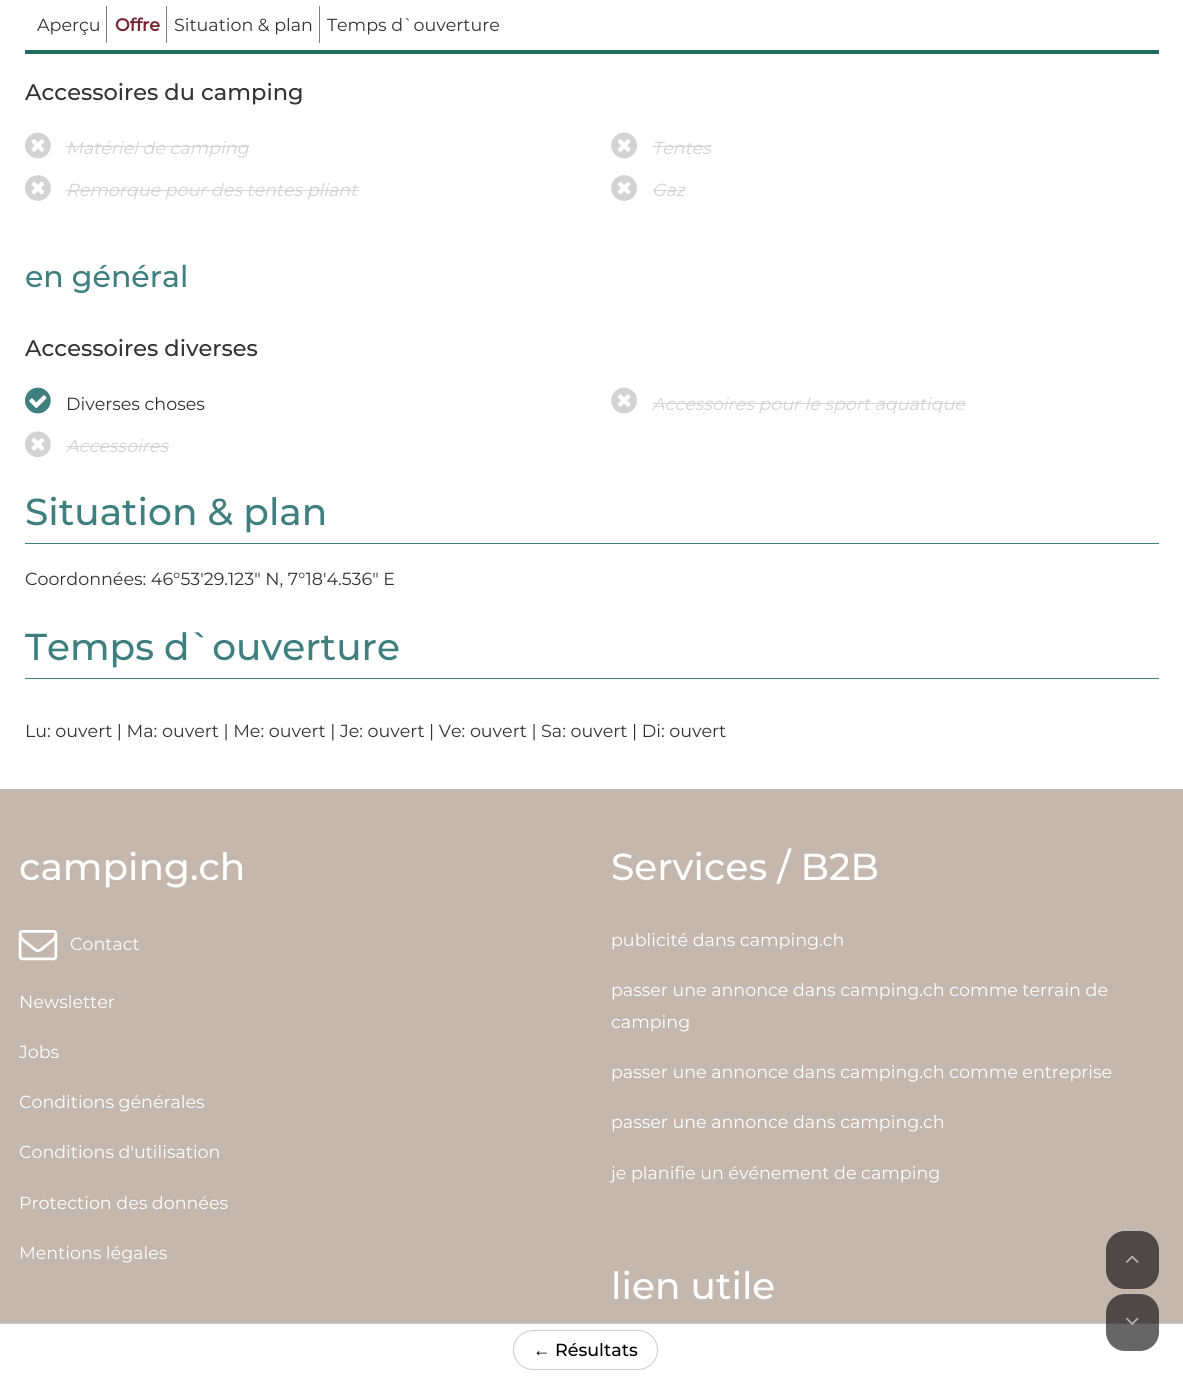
import math
import cairo

surface = cairo.ImageSurface(cairo.FORMAT_RGB24, 1183, 1376)
ctx = cairo.Context(surface)
options = cairo.FontOptions()
options.set_hint_metrics(cairo.HINT_METRICS_OFF)
options.set_hint_style(cairo.HINT_STYLE_NONE)
ctx.set_font_options(options)
ctx.set_miter_limit(4)


def set_color(code):
    ctx.set_source_rgb(*(v / 255 for v in bytes.fromhex(code[-6:])))


def draw_text(x, y, s, family, size, color, bold=False, italic=False):
    ctx.select_font_face(family, cairo.FONT_SLANT_ITALIC if italic else cairo.FONT_SLANT_NORMAL, cairo.FONT_WEIGHT_BOLD if bold else cairo.FONT_WEIGHT_NORMAL)
    ctx.set_font_size(size)
    set_color(color)
    ctx.move_to(x, y)
    ctx.show_text(s)


def fill_rect(x, y, w, h, color):
    set_color(color)
    ctx.rectangle(x, y, w, h)
    ctx.fill()


def rounded_rect(x, y, w, h, r):
    ctx.new_sub_path()
    for i, (u, v) in enumerate([(x + w - r, y + h - r), (x + r, y + h - r), (x + r, y + r), (x + w - r, y + r)]):
        ctx.arc(u, v, r, i * math.pi / 2, (i + 1) * math.pi / 2)
    ctx.close_path()


def draw_image(path, x, y, w, h):
    ctx.save()
    ctx.set_source_surface(cairo.ImageSurface.create_from_png(path), x, y)
    ctx.rectangle(x, y, w, h)
    ctx.fill()
    ctx.restore()


set_color("#ffffff")
ctx.paint()
fill_rect(25, 50, 1134, 4, "#246d5e")
fill_rect(106, 6, 1, 37, "#808080")
draw_text(37, 31, "Aperçu", "Montserrat", 17.5, "#333333")
fill_rect(166, 6, 1, 37, "#808080")
draw_text(115, 31, "Offre", "Montserrat", 17.5, "#762634", bold=True)
fill_rect(319, 6, 1, 37, "#808080")
draw_text(174, 31, "Situation & plan", "Montserrat", 17.5, "#333333")
draw_text(327, 31, "Temps d`ouverture", "Montserrat", 17.5, "#333333")
draw_text(25, 100, "Accessoires du camping", "Montserrat Medium", 22.5, "#333333")
draw_image("assets/img1.png", 25, 132, 26, 27)
draw_text(66, 154, "Matériel de camping", "Montserrat", 17.5, "#d3d3d3", italic=True)
fill_rect(66, 146, 183, 1, "#d3d3d3")
draw_image("assets/img2.png", 611, 132, 26, 27)
draw_text(652, 154, "Tentes", "Montserrat", 17.5, "#d3d3d3", italic=True)
fill_rect(653, 146, 58, 1, "#d3d3d3")
draw_image("assets/img3.png", 25, 175, 26, 26)
draw_text(66, 196, "Remorque pour des tentes pliant", "Montserrat", 17.5, "#d3d3d3", italic=True)
fill_rect(66, 190, 292, 1, "#d3d3d3")
draw_image("assets/img4.png", 611, 175, 26, 26)
draw_text(652, 196, "Gaz", "Montserrat", 17.5, "#d3d3d3", italic=True)
fill_rect(653, 190, 32, 1, "#d3d3d3")
draw_text(25, 287, "en général", "Montserrat Medium", 30, "#407f7f")
draw_text(25, 356, "Accessoires diverses", "Montserrat Medium", 22.5, "#333333")
draw_image("assets/img5.png", 25, 387, 26, 27)
draw_text(66, 410, "Diverses choses", "Montserrat", 17.5, "#333333")
draw_image("assets/img2.png", 611, 387, 26, 27)
draw_text(652, 410, "Accessoires pour le sport aquatique", "Montserrat", 17.5, "#d3d3d3", italic=True)
fill_rect(653, 403, 312, 1, "#d3d3d3")
draw_image("assets/img6.png", 25, 431, 26, 27)
draw_text(66, 452, "Accessoires", "Montserrat", 17.5, "#d3d3d3", italic=True)
fill_rect(66, 446, 103, 1, "#d3d3d3")
fill_rect(25, 543, 1134, 1, "#407f7f")
draw_text(25, 525, "Situation & plan", "Montserrat Medium", 37.5, "#407f7f")
draw_text(25, 585, "Coordonnées: 46°53'29.123\" N, 7°18'4.536\" E", "Montserrat", 17.5, "#333333")
fill_rect(25, 678, 1134, 1, "#407f7f")
draw_text(25, 660, "Temps d`ouverture", "Montserrat Medium", 37.5, "#407f7f")
draw_text(25, 737, "Lu: ouvert | Ma: ouvert | Me: ouvert | Je: ouvert | Ve: ouvert | Sa: ouvert | Di: ouvert", "Montserrat", 17.5, "#333333")
fill_rect(0, 1323, 1183, 1, "#cccccc")
rounded_rect(513.5, 1330.5, 144, 39, 19.5)
ctx.set_line_width(1)
ctx.stroke()
draw_text(533, 1356, "←", "Liberation Sans", 17.5, "#000000")
draw_text(555, 1356, "Résultats", "Montserrat Medium", 17.5, "#000000")
fill_rect(0, 789, 1183, 534, "#c3b7ae")
draw_text(19, 880, "camping.ch", "Montserrat Medium", 37.5, "#ffffff")
draw_image("assets/img7.png", 18, 930, 40, 31)
draw_text(70, 950, "Contact", "Montserrat", 17.5, "#ffffff")
draw_text(19, 1008, "Newsletter", "Montserrat", 17.5, "#ffffff")
draw_text(19, 1058, "Jobs", "Montserrat", 17.5, "#ffffff")
draw_text(19, 1108, "Conditions générales", "Montserrat", 17.5, "#ffffff")
draw_text(19, 1158, "Conditions d'utilisation", "Montserrat", 17.5, "#ffffff")
draw_text(19, 1209, "Protection des données", "Montserrat", 17.5, "#ffffff")
draw_text(19, 1259, "Mentions légales", "Montserrat", 17.5, "#ffffff")
draw_text(611, 880, "Services / B2B", "Montserrat Medium", 37.5, "#ffffff")
draw_text(611, 946, "publicité dans camping.ch", "Montserrat", 17.5, "#ffffff")
draw_text(611, 996, "passer une annonce dans camping.ch comme terrain de", "Montserrat", 17.5, "#ffffff")
draw_text(611, 1028, "camping", "Montserrat", 17.5, "#ffffff")
draw_text(611, 1078, "passer une annonce dans camping.ch comme entreprise", "Montserrat", 17.5, "#ffffff")
draw_text(611, 1128, "passer une annonce dans camping.ch", "Montserrat", 17.5, "#ffffff")
draw_text(611, 1179, "je planifie un événement de camping", "Montserrat", 17.5, "#ffffff")
draw_text(611, 1299, "lien utile", "Montserrat Medium", 37.5, "#ffffff")
set_color("#4e4946")
rounded_rect(1106, 1231, 53, 58, 19)
ctx.fill()
draw_image("assets/img8.png", 1126, 1255, 13, 8)
ctx.set_source_rgba(0, 0, 0, 0.6)
rounded_rect(1106, 1294, 53, 57, 19)
ctx.fill()
draw_image("assets/img9.png", 1126, 1317, 13, 8)
surface.write_to_png("output.png")
